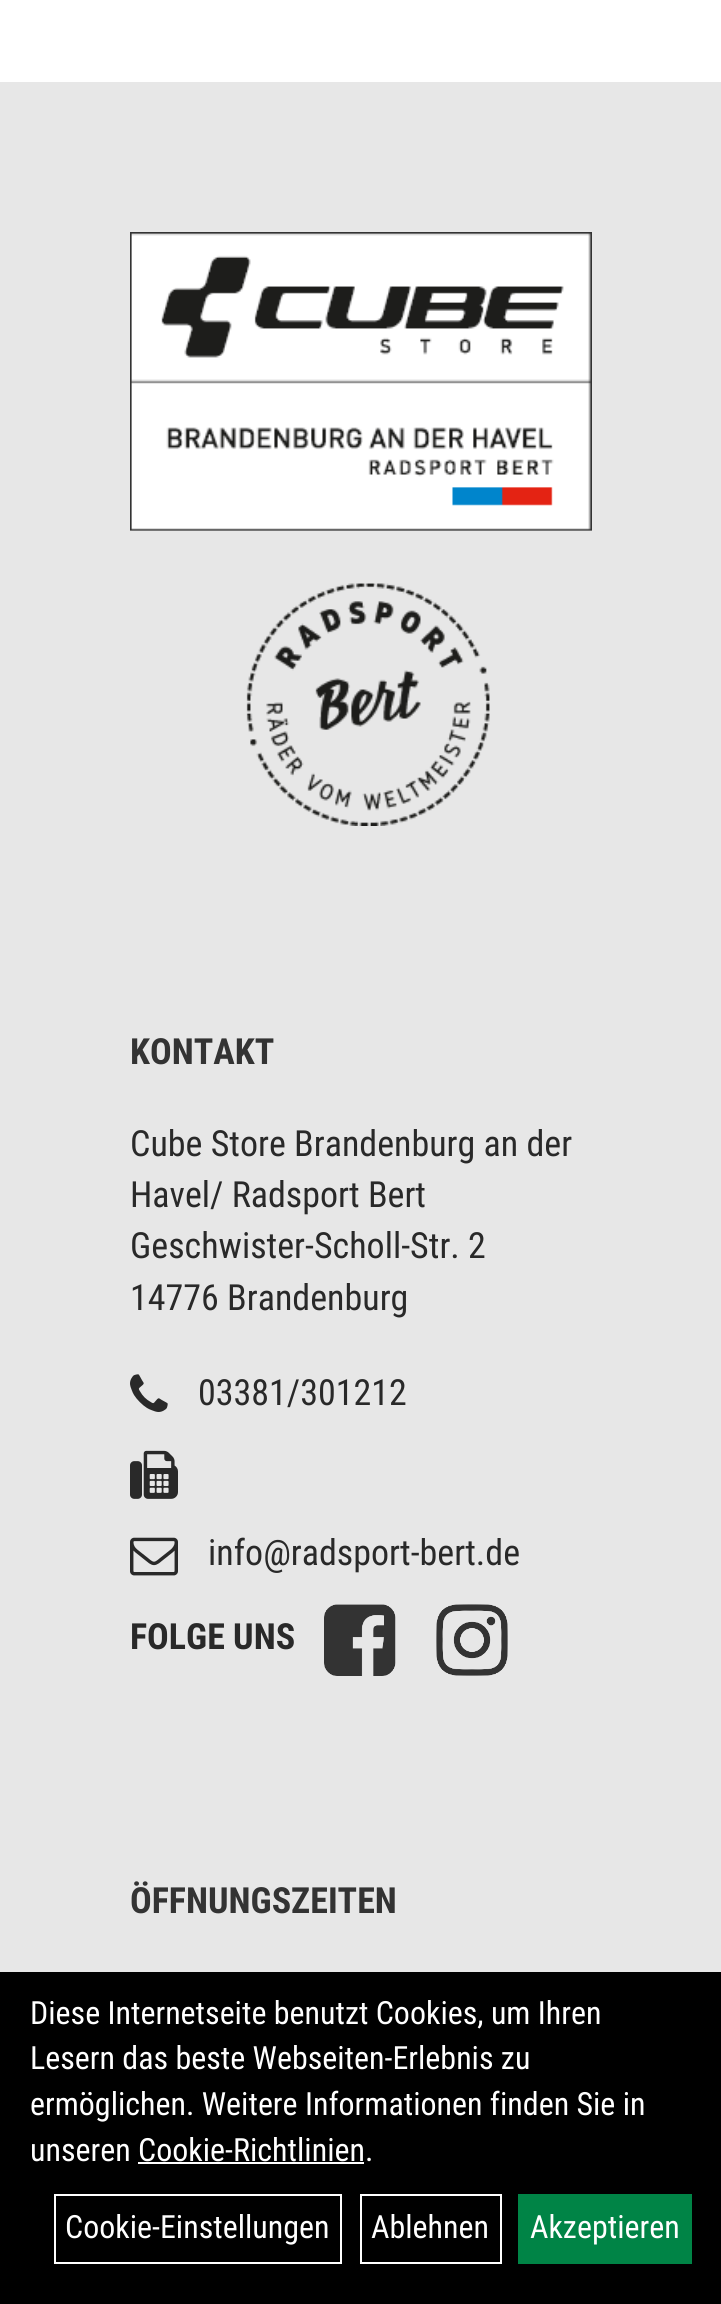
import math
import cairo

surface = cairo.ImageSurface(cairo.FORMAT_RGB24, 721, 2304)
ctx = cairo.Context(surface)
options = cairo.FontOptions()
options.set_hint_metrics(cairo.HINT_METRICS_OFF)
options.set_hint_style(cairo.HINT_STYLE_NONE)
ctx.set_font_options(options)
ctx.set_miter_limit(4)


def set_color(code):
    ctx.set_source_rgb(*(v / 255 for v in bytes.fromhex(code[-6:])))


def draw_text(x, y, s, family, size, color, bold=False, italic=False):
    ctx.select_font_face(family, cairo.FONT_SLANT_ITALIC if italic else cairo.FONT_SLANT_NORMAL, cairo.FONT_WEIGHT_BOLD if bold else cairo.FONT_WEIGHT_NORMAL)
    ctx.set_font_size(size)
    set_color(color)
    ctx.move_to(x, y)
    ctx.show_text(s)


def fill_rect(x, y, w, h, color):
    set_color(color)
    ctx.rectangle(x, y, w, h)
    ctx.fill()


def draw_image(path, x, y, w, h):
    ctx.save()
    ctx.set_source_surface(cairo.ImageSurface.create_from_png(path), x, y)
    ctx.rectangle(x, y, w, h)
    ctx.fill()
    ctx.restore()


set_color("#ffffff")
ctx.paint()
fill_rect(0, 82, 721, 1890, "#e7e7e7")
draw_image("assets/img1.png", 130, 232, 462, 594)
draw_text(130, 1064, "KONTAKT", "Roboto Condensed", 36, "#333333", bold=True)
draw_text(130, 1156, "Cube Store Brandenburg an der", "Roboto Condensed", 36, "#292929")
draw_text(130, 1207, "Havel/ Radsport Bert", "Roboto Condensed", 36, "#292929")
draw_text(130, 1258, "Geschwister-Scholl-Str. 2", "Roboto Condensed", 36, "#292929")
draw_text(130, 1310, "14776 Brandenburg", "Roboto Condensed", 36, "#292929")
draw_image("assets/img2.png", 130, 1374, 38, 38)
draw_text(198, 1405, "03381/301212", "Roboto Condensed", 36, "#292929")
draw_image("assets/img3.png", 130, 1450, 48, 49)
draw_image("assets/img4.png", 130, 1537, 48, 39)
draw_text(208, 1565, "info@radsport-bert.de", "Roboto Condensed", 36, "#292929")
draw_text(130, 1649, "FOLGE UNS", "Roboto Condensed", 36, "#292929", bold=True)
draw_image("assets/img5.png", 324, 1604, 72, 72)
draw_image("assets/img6.png", 436, 1604, 72, 72)
draw_text(130, 1913, "ÖFFNUNGSZEITEN", "Roboto Condensed", 36, "#333333", bold=True)
fill_rect(0, 1972, 721, 332, "#000000")
draw_text(30, 2024, "Diese Internetseite benutzt Cookies, um Ihren", "Roboto Condensed", 32, "#ffffff")
draw_text(30, 2069, "Lesern das beste Webseiten-Erlebnis zu", "Roboto Condensed", 32, "#ffffff")
draw_text(30, 2115, "ermöglichen. Weitere Informationen finden Sie in", "Roboto Condensed", 32, "#ffffff")
draw_text(30, 2161, "unseren Cookie-Richtlinien.", "Roboto Condensed", 32, "#ffffff")
fill_rect(138, 2162, 226, 2, "#ffffff")
ctx.rectangle(55, 2195, 286, 68)
ctx.stroke()
draw_text(65, 2238, "Cookie-Einstellungen", "Roboto Condensed", 32, "#ffffff")
ctx.rectangle(361, 2195, 140, 68)
ctx.stroke()
draw_text(371, 2238, "Ablehnen", "Roboto Condensed", 32, "#ffffff")
fill_rect(518, 2194, 174, 70, "#008446")
draw_text(530, 2238, "Akzeptieren", "Roboto Condensed", 32, "#ffffff")
surface.write_to_png("output.png")
